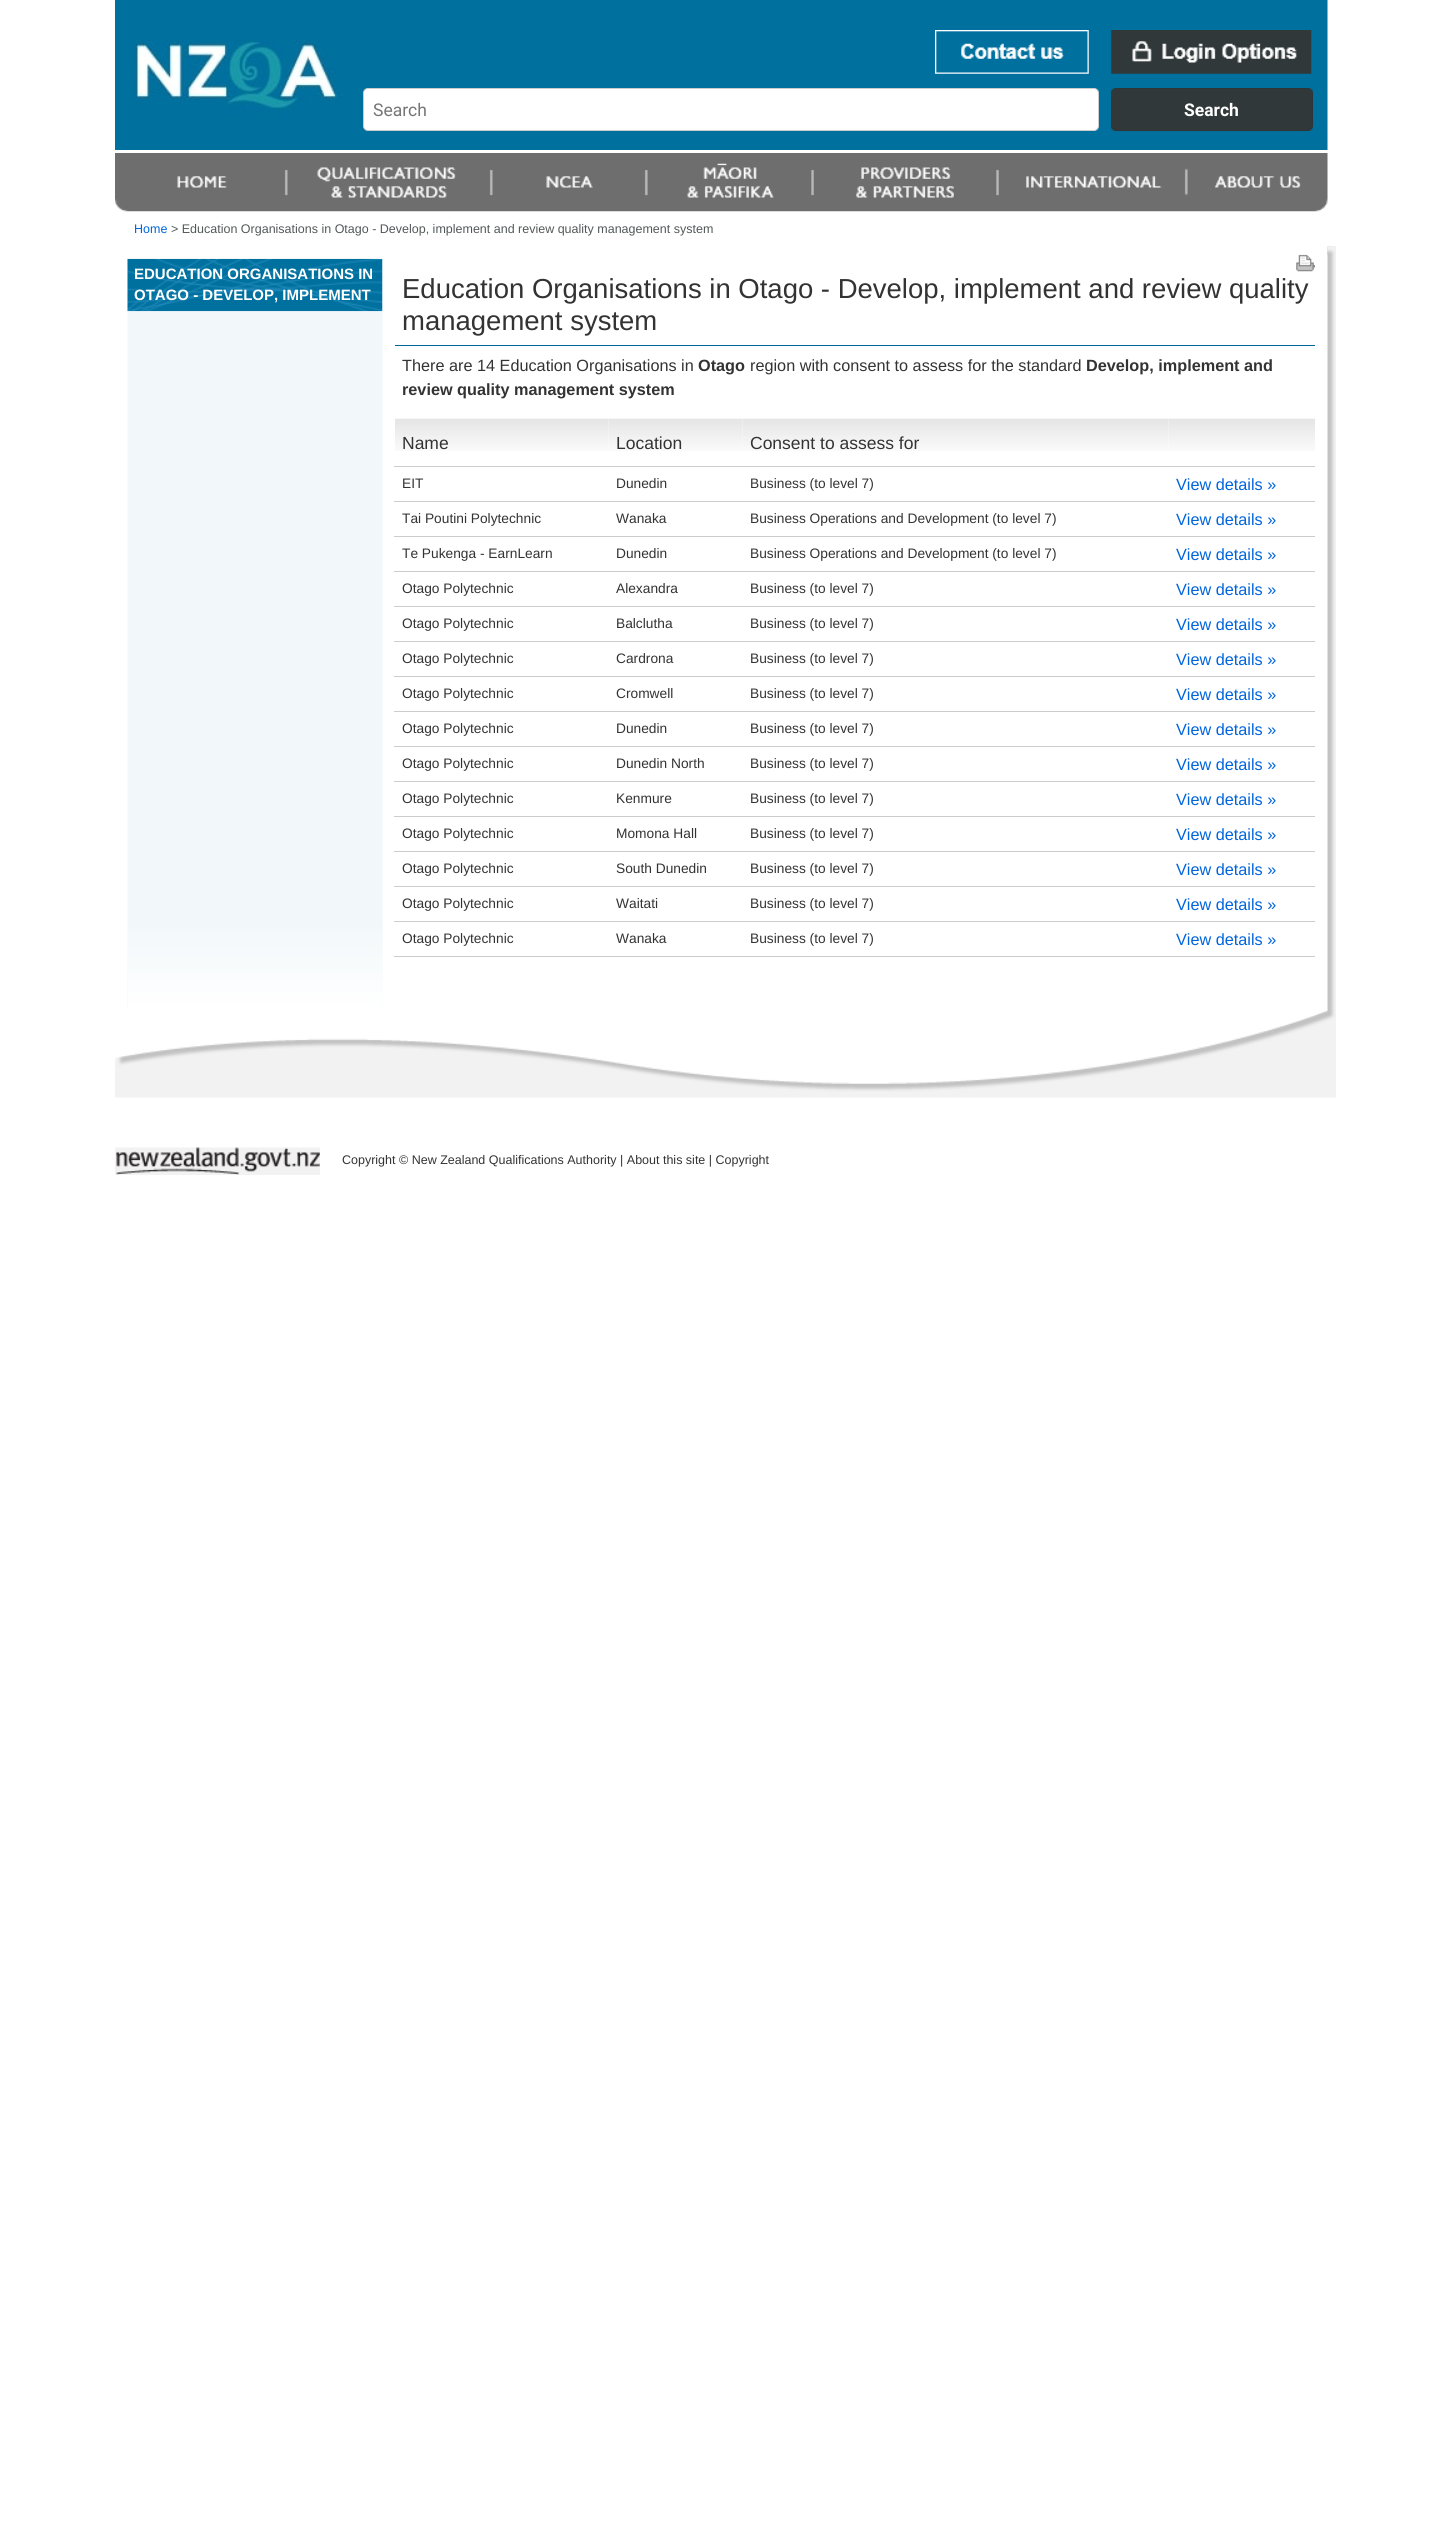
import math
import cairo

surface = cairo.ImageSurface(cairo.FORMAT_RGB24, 1449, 2548)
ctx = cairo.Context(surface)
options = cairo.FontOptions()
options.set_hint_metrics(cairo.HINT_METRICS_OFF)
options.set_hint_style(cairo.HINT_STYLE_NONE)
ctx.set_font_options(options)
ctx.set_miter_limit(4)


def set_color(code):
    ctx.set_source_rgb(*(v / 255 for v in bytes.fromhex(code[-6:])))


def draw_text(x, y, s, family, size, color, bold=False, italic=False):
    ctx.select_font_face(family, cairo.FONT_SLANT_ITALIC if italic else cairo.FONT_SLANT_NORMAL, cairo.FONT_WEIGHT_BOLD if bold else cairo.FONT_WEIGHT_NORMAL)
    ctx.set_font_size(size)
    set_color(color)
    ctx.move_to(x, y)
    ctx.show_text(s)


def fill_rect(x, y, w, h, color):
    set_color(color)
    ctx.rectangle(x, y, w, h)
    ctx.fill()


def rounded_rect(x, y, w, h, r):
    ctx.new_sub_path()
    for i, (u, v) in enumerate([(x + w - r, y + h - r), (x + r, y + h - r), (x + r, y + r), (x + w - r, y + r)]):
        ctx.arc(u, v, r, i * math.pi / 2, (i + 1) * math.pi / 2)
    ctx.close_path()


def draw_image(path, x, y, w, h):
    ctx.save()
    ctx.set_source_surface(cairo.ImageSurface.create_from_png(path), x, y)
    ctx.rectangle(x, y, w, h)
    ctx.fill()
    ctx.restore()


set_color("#ffffff")
ctx.paint()
draw_image("assets/img1.png", 115, 0, 1213, 150)
draw_image("assets/img2.png", 935, 30, 154, 44)
draw_image("assets/img3.png", 1111, 30, 201, 44)
set_color("#ffffff")
rounded_rect(363.5, 88.5, 735, 42, 4.5)
ctx.fill_preserve()
set_color("#cccccc")
ctx.set_line_width(1)
ctx.stroke()
draw_text(373, 116, "Search", "Roboto", 17.5, "#757575")
set_color("#036e9a")
ctx.new_path()
ctx.move_to(1111, 92)
ctx.line_to(1111, 128)
ctx.curve_to(1111, 131, 1113, 133, 1116, 133)
ctx.line_to(1308, 133)
ctx.curve_to(1311, 133, 1313, 131, 1313, 128)
ctx.line_to(1313, 94)
ctx.line_to(1312, 92)
ctx.line_to(1312, 115)
ctx.curve_to(1312, 119, 1315, 131, 1308, 131)
ctx.line_to(1116, 131)
ctx.curve_to(1110, 131, 1111, 124, 1111, 121)
ctx.close_path()
ctx.fill()
set_color("#30383a")
rounded_rect(1111, 88, 202, 43, 5)
ctx.fill()
ctx.rectangle(1111.5, 88.5, 201, 42)
ctx.set_source_rgba(0, 0, 0, 0.05)
ctx.stroke()
draw_text(1184, 116, "Search", "Roboto", 17.5, "#ffffff", bold=True)
draw_image("assets/img4.png", 115, 153, 1213, 59)
draw_text(134, 233, "Home", "Liberation Sans", 12.5, "#0064dd")
draw_text(171, 233, "> Education Organisations in Otago - Develop, implement and review quality management system", "Liberation Sans", 12.5, "#525858")
draw_image("assets/img5.png", 127, 246, 1209, 764)
fill_rect(127, 246, 256, 13, "#ffffff")
draw_image("assets/img6.png", 127, 258, 256, 54)
draw_text(134, 279, "EDUCATION ORGANISATIONS IN", "Liberation Sans", 15, "#ffffff", bold=True)
draw_text(134, 300, "OTAGO - DEVELOP, IMPLEMENT", "Liberation Sans", 15, "#ffffff", bold=True)
draw_image("assets/img7.png", 128, 919, 255, 91)
draw_image("assets/img8.png", 1327, 246, 8, 9)
draw_image("assets/img9.png", 1296, 254, 19, 18)
fill_rect(395, 345, 920, 1, "#006699")
draw_text(402, 298, "Education Organisations in Otago - Develop, implement and review quality", "Liberation Sans", 27.5, "#333333")
draw_text(402, 330, "management system", "Liberation Sans", 27.5, "#333333")
draw_text(402, 371, "There are 14 Education Organisations in", "Liberation Sans", 16.25, "#333333")
draw_text(698, 371, "Otago", "Liberation Sans", 16.25, "#333333", bold=True)
draw_text(750, 371, "region with consent to assess for the standard", "Liberation Sans", 16.25, "#333333")
draw_text(1086, 371, "Develop, implement and", "Liberation Sans", 16.25, "#333333", bold=True)
draw_text(402, 395, "review quality management system", "Liberation Sans", 16.25, "#333333", bold=True)
draw_image("assets/img10.png", 1169, 418, 146, 33)
fill_rect(394, 466, 921, 1, "#cccccc")
draw_image("assets/img11.png", 395, 418, 214, 33)
draw_text(402, 449, "Name", "Liberation Sans", 17.5, "#333333")
draw_image("assets/img12.png", 609, 418, 134, 33)
draw_text(616, 449, "Location", "Liberation Sans", 17.5, "#333333")
draw_image("assets/img13.png", 742, 418, 427, 33)
draw_text(750, 449, "Consent to assess for", "Liberation Sans", 17.5, "#333333")
draw_text(402, 488, "EIT", "Liberation Sans", 13.75, "#333333")
draw_text(616, 488, "Dunedin", "Liberation Sans", 13.75, "#333333")
draw_text(750, 488, "Business (to level 7)", "Liberation Sans", 13.75, "#333333")
fill_rect(394, 501, 921, 1, "#cccccc")
draw_text(1176, 490, "View details »", "Liberation Sans", 16.25, "#0064dd")
draw_text(402, 523, "Tai Poutini Polytechnic", "Liberation Sans", 13.75, "#333333")
draw_text(616, 523, "Wanaka", "Liberation Sans", 13.75, "#333333")
draw_text(750, 523, "Business Operations and Development (to level 7)", "Liberation Sans", 13.75, "#333333")
fill_rect(394, 536, 921, 1, "#cccccc")
draw_text(1176, 525, "View details »", "Liberation Sans", 16.25, "#0064dd")
draw_text(402, 558, "Te Pukenga - EarnLearn", "Liberation Sans", 13.75, "#333333")
draw_text(616, 558, "Dunedin", "Liberation Sans", 13.75, "#333333")
draw_text(750, 558, "Business Operations and Development (to level 7)", "Liberation Sans", 13.75, "#333333")
fill_rect(394, 571, 921, 1, "#cccccc")
draw_text(1176, 560, "View details »", "Liberation Sans", 16.25, "#0064dd")
draw_text(402, 593, "Otago Polytechnic", "Liberation Sans", 13.75, "#333333")
draw_text(616, 593, "Alexandra", "Liberation Sans", 13.75, "#333333")
draw_text(750, 593, "Business (to level 7)", "Liberation Sans", 13.75, "#333333")
fill_rect(394, 606, 921, 1, "#cccccc")
draw_text(1176, 595, "View details »", "Liberation Sans", 16.25, "#0064dd")
draw_text(402, 628, "Otago Polytechnic", "Liberation Sans", 13.75, "#333333")
draw_text(616, 628, "Balclutha", "Liberation Sans", 13.75, "#333333")
draw_text(750, 628, "Business (to level 7)", "Liberation Sans", 13.75, "#333333")
fill_rect(394, 641, 921, 1, "#cccccc")
draw_text(1176, 630, "View details »", "Liberation Sans", 16.25, "#0064dd")
draw_text(402, 663, "Otago Polytechnic", "Liberation Sans", 13.75, "#333333")
draw_text(616, 663, "Cardrona", "Liberation Sans", 13.75, "#333333")
draw_text(750, 663, "Business (to level 7)", "Liberation Sans", 13.75, "#333333")
fill_rect(394, 676, 921, 1, "#cccccc")
draw_text(1176, 665, "View details »", "Liberation Sans", 16.25, "#0064dd")
draw_text(402, 698, "Otago Polytechnic", "Liberation Sans", 13.75, "#333333")
draw_text(616, 698, "Cromwell", "Liberation Sans", 13.75, "#333333")
draw_text(750, 698, "Business (to level 7)", "Liberation Sans", 13.75, "#333333")
fill_rect(394, 711, 921, 1, "#cccccc")
draw_text(1176, 700, "View details »", "Liberation Sans", 16.25, "#0064dd")
draw_text(402, 733, "Otago Polytechnic", "Liberation Sans", 13.75, "#333333")
draw_text(616, 733, "Dunedin", "Liberation Sans", 13.75, "#333333")
draw_text(750, 733, "Business (to level 7)", "Liberation Sans", 13.75, "#333333")
fill_rect(394, 746, 921, 1, "#cccccc")
draw_text(1176, 735, "View details »", "Liberation Sans", 16.25, "#0064dd")
draw_text(402, 768, "Otago Polytechnic", "Liberation Sans", 13.75, "#333333")
draw_text(616, 768, "Dunedin North", "Liberation Sans", 13.75, "#333333")
draw_text(750, 768, "Business (to level 7)", "Liberation Sans", 13.75, "#333333")
fill_rect(394, 781, 921, 1, "#cccccc")
draw_text(1176, 770, "View details »", "Liberation Sans", 16.25, "#0064dd")
draw_text(402, 803, "Otago Polytechnic", "Liberation Sans", 13.75, "#333333")
draw_text(616, 803, "Kenmure", "Liberation Sans", 13.75, "#333333")
draw_text(750, 803, "Business (to level 7)", "Liberation Sans", 13.75, "#333333")
fill_rect(394, 816, 921, 1, "#cccccc")
draw_text(1176, 805, "View details »", "Liberation Sans", 16.25, "#0064dd")
draw_text(402, 838, "Otago Polytechnic", "Liberation Sans", 13.75, "#333333")
draw_text(616, 838, "Momona Hall", "Liberation Sans", 13.75, "#333333")
draw_text(750, 838, "Business (to level 7)", "Liberation Sans", 13.75, "#333333")
fill_rect(394, 851, 921, 1, "#cccccc")
draw_text(1176, 840, "View details »", "Liberation Sans", 16.25, "#0064dd")
draw_text(402, 873, "Otago Polytechnic", "Liberation Sans", 13.75, "#333333")
draw_text(616, 873, "South Dunedin", "Liberation Sans", 13.75, "#333333")
draw_text(750, 873, "Business (to level 7)", "Liberation Sans", 13.75, "#333333")
fill_rect(394, 886, 921, 1, "#cccccc")
draw_text(1176, 875, "View details »", "Liberation Sans", 16.25, "#0064dd")
draw_text(402, 908, "Otago Polytechnic", "Liberation Sans", 13.75, "#333333")
draw_text(616, 908, "Waitati", "Liberation Sans", 13.75, "#333333")
draw_text(750, 908, "Business (to level 7)", "Liberation Sans", 13.75, "#333333")
fill_rect(394, 921, 921, 1, "#cccccc")
draw_text(1176, 910, "View details »", "Liberation Sans", 16.25, "#0064dd")
draw_text(402, 943, "Otago Polytechnic", "Liberation Sans", 13.75, "#333333")
draw_text(616, 943, "Wanaka", "Liberation Sans", 13.75, "#333333")
draw_text(750, 943, "Business (to level 7)", "Liberation Sans", 13.75, "#333333")
fill_rect(394, 956, 921, 1, "#cccccc")
draw_text(1176, 945, "View details »", "Liberation Sans", 16.25, "#0064dd")
draw_image("assets/img14.png", 115, 1010, 1221, 88)
draw_image("assets/img15.png", 115, 1147, 205, 28)
draw_text(342, 1164, "Copyright © New Zealand Qualifications Authority | About this site | Copyright", "Liberation Sans", 12.5, "#333333")
surface.write_to_png("output.png")
